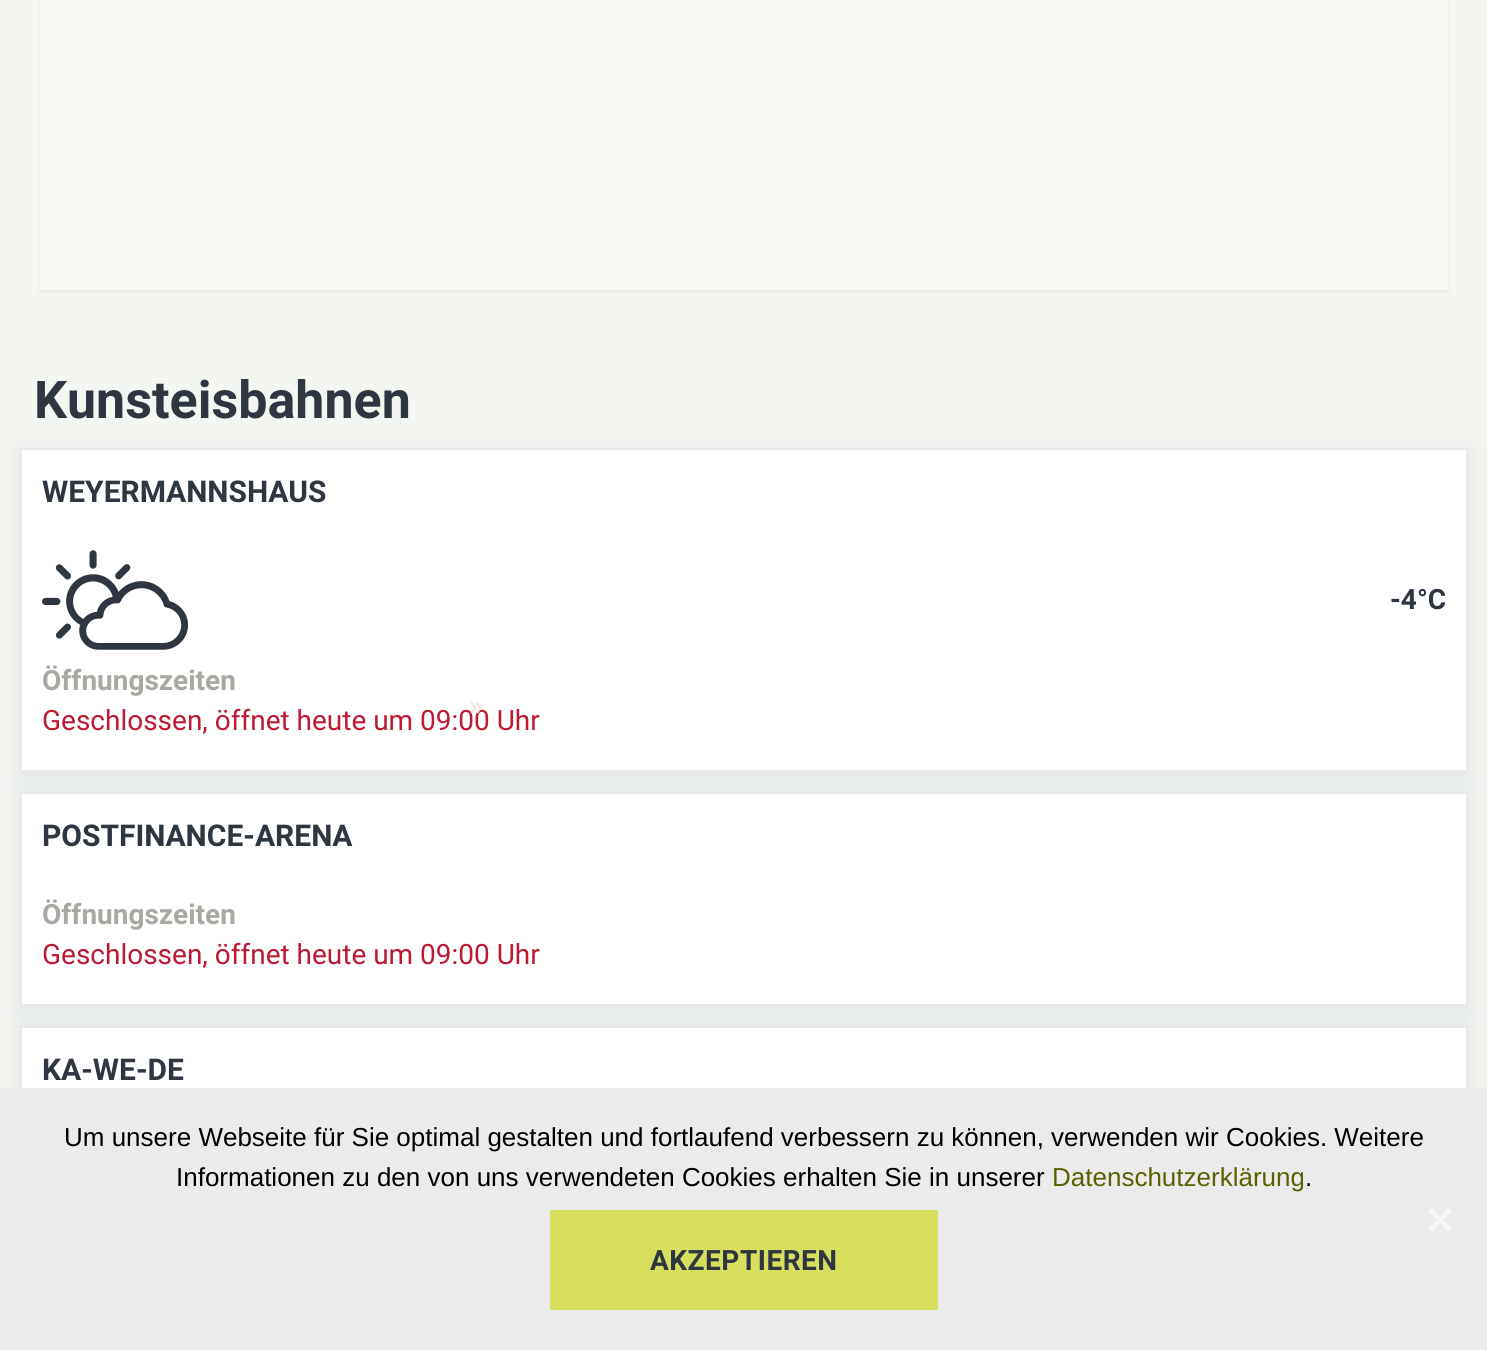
import math
import cairo

surface = cairo.ImageSurface(cairo.FORMAT_RGB24, 1487, 1350)
ctx = cairo.Context(surface)
options = cairo.FontOptions()
options.set_hint_metrics(cairo.HINT_METRICS_OFF)
options.set_hint_style(cairo.HINT_STYLE_NONE)
ctx.set_font_options(options)
ctx.set_miter_limit(4)


def set_color(code):
    ctx.set_source_rgb(*(v / 255 for v in bytes.fromhex(code[-6:])))


def draw_text(x, y, s, family, size, color, bold=False, italic=False):
    ctx.select_font_face(family, cairo.FONT_SLANT_ITALIC if italic else cairo.FONT_SLANT_NORMAL, cairo.FONT_WEIGHT_BOLD if bold else cairo.FONT_WEIGHT_NORMAL)
    ctx.set_font_size(size)
    set_color(color)
    ctx.move_to(x, y)
    ctx.show_text(s)


def draw_spaced(x, y, s, letter, word):
    ctx.move_to(x, y)
    for ch in s:
        ctx.show_text(ch)
        ctx.rel_move_to(letter + word * (ch == ' '), 0)


def fill_rect(x, y, w, h, color):
    set_color(color)
    ctx.rectangle(x, y, w, h)
    ctx.fill()


def rounded_rect(x, y, w, h, r):
    ctx.new_sub_path()
    for i, (u, v) in enumerate([(x + w - r, y + h - r), (x + r, y + h - r), (x + r, y + r), (x + w - r, y + r)]):
        ctx.arc(u, v, r, i * math.pi / 2, (i + 1) * math.pi / 2)
    ctx.close_path()


def draw_shadow(x, y, w, h, r, blur, alpha):
    ctx.push_group_with_content(cairo.CONTENT_ALPHA)
    ctx.set_operator(cairo.OPERATOR_SOURCE)
    for i in range(15, -16, -2):
        e = blur * i / 6
        if min(w, h) + 2 * e > 0:
            ctx.set_source_rgba(0, 0, 0, alpha * math.erfc((i - 1) / 8.5) / 2)
            rounded_rect(x - e, y - e, w + 2 * e, h + 2 * e, max(0, min(r + e + blur * .6, min(w, h) / 2 + e)))
            ctx.fill()
    ctx.mask(ctx.pop_group())


def draw_image(path, x, y, w, h):
    ctx.save()
    ctx.set_source_surface(cairo.ImageSurface.create_from_png(path), x, y)
    ctx.rectangle(x, y, w, h)
    ctx.fill()
    ctx.restore()


set_color("#f4f6f1")
ctx.paint()
set_color("#b7b9b5")
draw_shadow(40, -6, 1408, 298, 0, 2, 0.22)
fill_rect(40, 0, 1408, 290, "#f6f9f4")
draw_text(34, 418, "Kunsteisbahnen", "Roboto", 52, "#2e3641", bold=True)
set_color("#627684")
draw_shadow(20, 450, 1448, 324, 0, 15, 0.16)
set_color("#ffffff")
ctx.rectangle(21, 449, 1446, 322)
ctx.fill_preserve()
set_color("#eaeaea")
ctx.stroke()
draw_text(42, 502, "WEYERMANNSHAUS", "Roboto", 30, "#2e3641", bold=True)
draw_image("assets/img1.png", 42, 550, 146, 100)
draw_text(1390, 609, "-4°C", "Roboto", 28, "#2e3641", bold=True)
draw_text(42, 690, "Öffnungszeiten", "Roboto", 28, "#a6aaa0", bold=True)
draw_text(42, 730, "Geschlossen, öffnet heute um 09:00 Uhr", "Roboto", 28, "#bd1931")
draw_text(469, 715, "»", "Roboto", 28, "#f7e3e6", bold=True)
set_color("#627684")
draw_shadow(20, 794, 1448, 214, 0, 15, 0.16)
set_color("#ffffff")
ctx.rectangle(21, 793, 1446, 212)
ctx.fill_preserve()
set_color("#eaeaea")
ctx.stroke()
draw_text(42, 846, "POSTFINANCE-ARENA", "Roboto", 30, "#2e3641", bold=True)
draw_text(42, 924, "Öffnungszeiten", "Roboto", 28, "#a6aaa0", bold=True)
draw_text(42, 964, "Geschlossen, öffnet heute um 09:00 Uhr", "Roboto", 28, "#bd1931")
set_color("#627684")
draw_shadow(20, 1028, 1448, 264, 0, 15, 0.16)
fill_rect(22, 1028, 1444, 60, "#ffffff")
ctx.rectangle(21, 1027, 1446, 262)
set_color("#eaeaea")
ctx.stroke()
draw_text(42, 1080, "KA-WE-DE", "Roboto", 30, "#2e3641", bold=True)
fill_rect(0, 1088, 1487, 262, "#ebebeb")
draw_text(64, 1146, "Um unsere Webseite für Sie optimal gestalten und fortlaufend verbessern zu können, verwenden wir Cookies. Weitere", "Liberation Sans", 26, "#000000")
draw_text(176, 1186, "Informationen zu den von uns verwendeten Cookies erhalten Sie in unserer", "Liberation Sans", 26, "#000000")
draw_text(1052, 1186, "Datenschutzerklärung", "Liberation Sans", 26, "#5a5f00")
draw_text(1305, 1186, ".", "Liberation Sans", 26, "#000000")
set_color("#f5f5f5")
ctx.new_path()
ctx.move_to(1449, 1208)
ctx.line_to(1452, 1211)
ctx.line_to(1431, 1232)
ctx.line_to(1428, 1229)
ctx.close_path()
ctx.fill()
ctx.new_path()
ctx.move_to(1428, 1211)
ctx.line_to(1431, 1208)
ctx.line_to(1452, 1229)
ctx.line_to(1449, 1232)
ctx.close_path()
ctx.fill()
fill_rect(550, 1210, 388, 100, "#d8df5e")
ctx.select_font_face("Roboto", cairo.FONT_SLANT_NORMAL, cairo.FONT_WEIGHT_BOLD)
ctx.set_font_size(28)
set_color("#2e3641")
draw_spaced(650, 1270, "AKZEPTIEREN", 0.5, 0)
surface.write_to_png("output.png")
